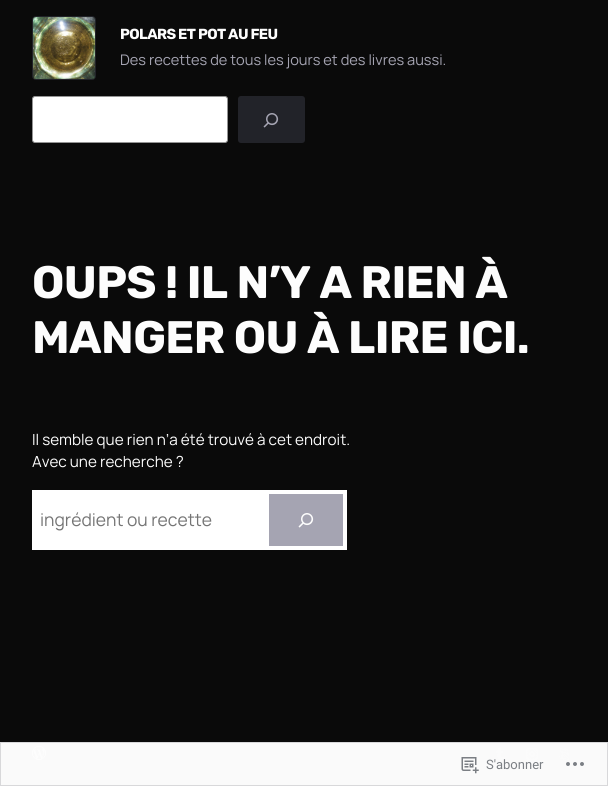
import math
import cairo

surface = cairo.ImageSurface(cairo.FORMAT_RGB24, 608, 786)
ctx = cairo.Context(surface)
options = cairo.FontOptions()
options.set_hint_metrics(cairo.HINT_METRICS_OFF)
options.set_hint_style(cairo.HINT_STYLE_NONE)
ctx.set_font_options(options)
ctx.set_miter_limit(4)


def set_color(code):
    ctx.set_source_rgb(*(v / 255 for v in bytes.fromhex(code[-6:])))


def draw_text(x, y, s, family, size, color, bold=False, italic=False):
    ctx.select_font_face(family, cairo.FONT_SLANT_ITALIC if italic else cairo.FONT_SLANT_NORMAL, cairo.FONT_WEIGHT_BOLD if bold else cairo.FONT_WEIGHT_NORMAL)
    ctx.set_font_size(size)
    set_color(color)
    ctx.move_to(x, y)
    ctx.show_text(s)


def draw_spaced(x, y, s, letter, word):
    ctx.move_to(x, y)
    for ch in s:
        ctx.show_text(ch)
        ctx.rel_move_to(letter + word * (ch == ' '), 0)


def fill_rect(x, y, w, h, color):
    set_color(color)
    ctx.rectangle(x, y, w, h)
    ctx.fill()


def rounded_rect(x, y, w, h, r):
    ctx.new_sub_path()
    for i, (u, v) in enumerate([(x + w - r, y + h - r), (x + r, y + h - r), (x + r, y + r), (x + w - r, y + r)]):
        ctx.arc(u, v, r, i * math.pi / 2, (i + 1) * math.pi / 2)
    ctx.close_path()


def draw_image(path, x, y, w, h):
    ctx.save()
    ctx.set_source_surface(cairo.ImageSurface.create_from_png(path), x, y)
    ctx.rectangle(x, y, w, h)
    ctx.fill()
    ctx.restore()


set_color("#0a0a0a")
ctx.paint()
fill_rect(1, 743, 606, 42, "#fafafa")
rounded_rect(32.5, 16.5, 63, 63, 3.5)
set_color("#222329")
ctx.set_line_width(1)
ctx.stroke()
draw_image("assets/img1.png", 33, 17, 62, 62)
ctx.select_font_face("Rubik", cairo.FONT_SLANT_NORMAL, cairo.FONT_WEIGHT_BOLD)
ctx.set_font_size(14.6)
set_color("#fdfdfd")
draw_spaced(120, 39, "POLARS ET POT AU FEU", -0.6, 0)
draw_text(120, 65, "Des recettes de tous les jours et des livres aussi.", "Manrope", 14.6, "#a5a4b2")
set_color("#ffffff")
rounded_rect(32.5, 96.5, 195, 46, 2.5)
ctx.fill_preserve()
set_color("#949494")
ctx.stroke()
set_color("#222329")
rounded_rect(238, 96, 67, 47, 3)
ctx.fill()
draw_image("assets/img2.png", 263, 113, 16, 15)
ctx.select_font_face("Rubik", cairo.FONT_SLANT_NORMAL, cairo.FONT_WEIGHT_BOLD)
ctx.set_font_size(45.5)
set_color("#fdfdfd")
draw_spaced(32, 298, "OUPS ! IL N’Y A RIEN À", -0.6, 0)
draw_spaced(32, 353, "MANGER OU À LIRE ICI.", -0.6, 0)
draw_text(32, 445, "Il semble que rien n’a été trouvé à cet endroit.", "Manrope", 15.25, "#fdfdfd")
draw_text(32, 467, "Avec une recherche ?", "Manrope", 15.25, "#fdfdfd")
fill_rect(32, 490, 315, 60, "#ffffff")
draw_text(40, 526, "ingrédient ou recette", "Manrope", 17.5, "#757575")
fill_rect(269, 494, 74, 52, "#a5a4b2")
draw_image("assets/img3.png", 298, 513, 16, 15)
draw_image("assets/img4.png", 32, 746, 14, 14)
draw_image("assets/img5.png", 496, 747, 8, 14)
draw_image("assets/img6.png", 526, 748, 12, 12)
draw_image("assets/img7.png", 559, 747, 10, 14)
ctx.rectangle(0.5, 742.5, 607, 43)
set_color("#d8d8da")
ctx.stroke()
draw_image("assets/img8.png", 461, 757, 18, 17)
draw_text(486, 769, "S'abonner", "Roboto", 13, "#7b7f84")
draw_image("assets/img9.png", 566, 762, 18, 4)
surface.write_to_png("output.png")
